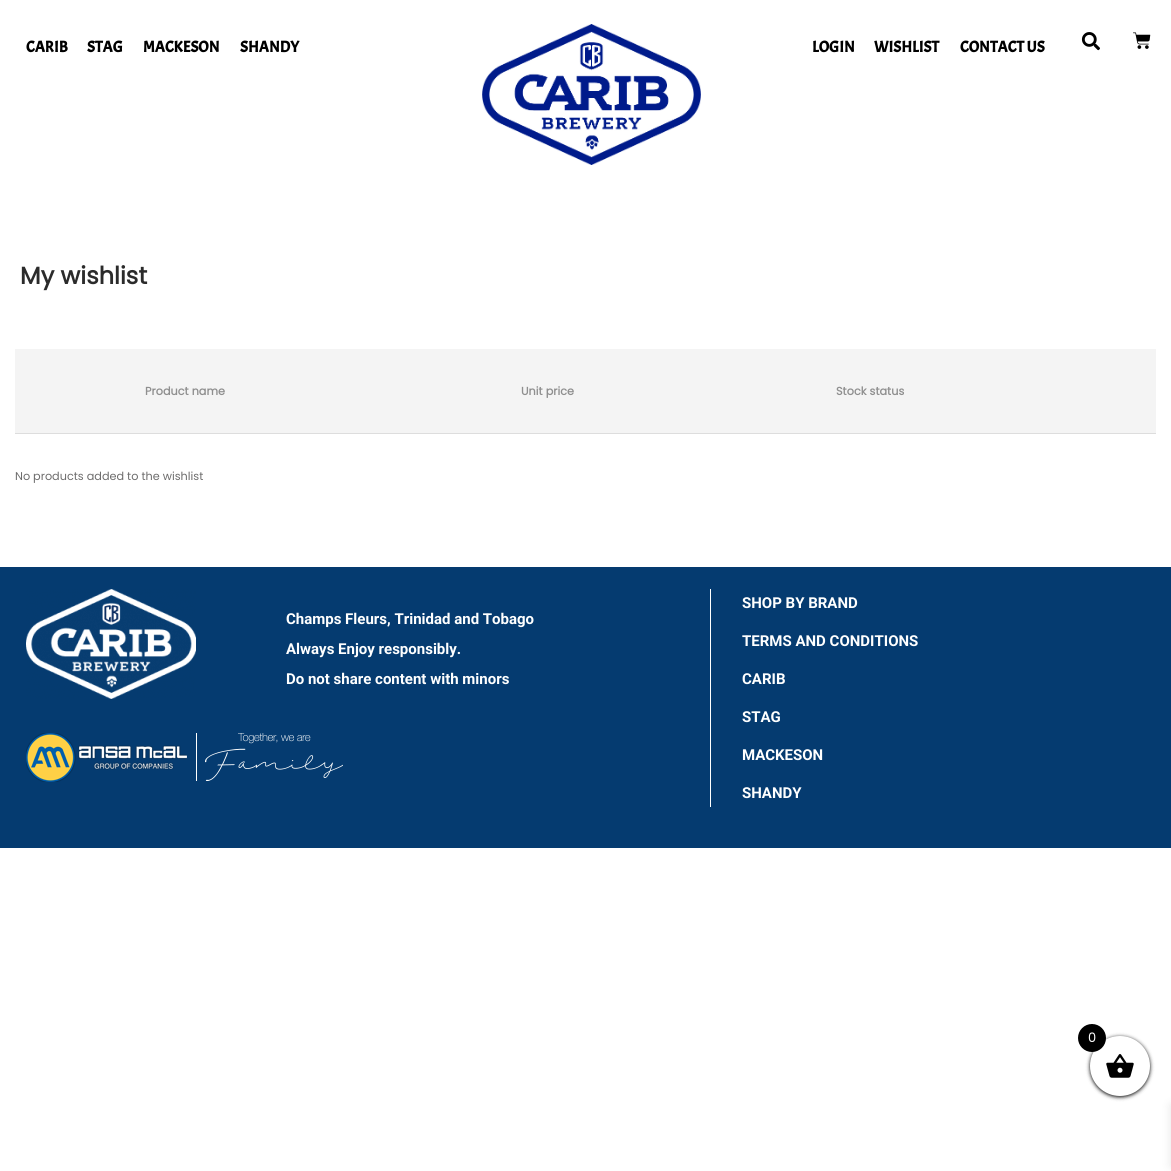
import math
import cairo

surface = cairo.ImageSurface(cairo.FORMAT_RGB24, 1171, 1171)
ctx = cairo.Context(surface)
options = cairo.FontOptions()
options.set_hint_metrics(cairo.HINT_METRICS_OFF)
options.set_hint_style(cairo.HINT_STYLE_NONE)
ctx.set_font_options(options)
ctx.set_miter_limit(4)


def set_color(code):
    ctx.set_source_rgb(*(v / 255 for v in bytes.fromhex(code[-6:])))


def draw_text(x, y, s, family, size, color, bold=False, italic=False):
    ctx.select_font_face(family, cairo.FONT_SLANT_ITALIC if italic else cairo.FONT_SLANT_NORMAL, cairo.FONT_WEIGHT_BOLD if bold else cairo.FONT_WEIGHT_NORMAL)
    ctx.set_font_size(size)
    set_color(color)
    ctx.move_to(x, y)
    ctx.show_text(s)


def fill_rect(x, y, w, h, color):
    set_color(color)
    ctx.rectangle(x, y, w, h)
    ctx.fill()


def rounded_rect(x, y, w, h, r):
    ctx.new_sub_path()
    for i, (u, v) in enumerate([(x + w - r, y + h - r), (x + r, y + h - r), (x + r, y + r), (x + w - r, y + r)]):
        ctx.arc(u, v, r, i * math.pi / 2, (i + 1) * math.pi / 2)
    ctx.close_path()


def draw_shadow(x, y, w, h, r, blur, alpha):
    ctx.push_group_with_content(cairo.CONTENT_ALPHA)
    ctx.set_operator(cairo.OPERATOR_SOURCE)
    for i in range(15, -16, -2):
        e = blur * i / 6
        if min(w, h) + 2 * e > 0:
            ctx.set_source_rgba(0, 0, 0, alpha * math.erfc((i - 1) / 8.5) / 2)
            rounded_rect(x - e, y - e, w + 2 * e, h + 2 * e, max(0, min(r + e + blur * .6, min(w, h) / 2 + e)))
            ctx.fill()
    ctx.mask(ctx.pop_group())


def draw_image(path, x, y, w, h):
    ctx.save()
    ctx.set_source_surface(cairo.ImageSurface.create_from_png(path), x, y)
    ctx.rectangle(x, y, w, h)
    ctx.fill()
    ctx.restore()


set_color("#ffffff")
ctx.paint()
draw_text(26, 52, "CARIB", "Acme", 15.75, "#000000", bold=True)
draw_text(87, 52, "STAG", "Acme", 15.75, "#000000", bold=True)
draw_text(143, 52, "MACKESON", "Acme", 15.75, "#000000", bold=True)
draw_text(240, 52, "SHANDY", "Acme", 15.75, "#000000", bold=True)
draw_image("assets/img1.png", 482, 24, 219, 141)
draw_text(812, 52, "LOGIN", "Acme", 15.75, "#000000", bold=True)
draw_text(874, 52, "WISHLIST", "Acme", 15.75, "#000000", bold=True)
draw_text(960, 52, "CONTACT US", "Acme", 15.75, "#000000", bold=True)
draw_image("assets/img2.png", 1081, 32, 19, 19)
draw_image("assets/img3.png", 1133, 32, 18, 17)
draw_text(20, 284, "My wishlist", "Poppins", 24, "#2b2b2b", bold=True)
fill_rect(15, 349, 1141, 84, "#f4f4f4")
fill_rect(15, 433, 1141, 1, "#dddddd")
draw_text(145, 395, "Product name", "Poppins", 11.25, "#8f8f8f", bold=True)
draw_text(521, 395, "Unit price", "Poppins", 11.25, "#8f8f8f", bold=True)
draw_text(836, 395, "Stock status", "Poppins", 11.25, "#8f8f8f", bold=True)
draw_text(15, 480, "No products added to the wishlist", "Poppins", 11.25, "#6d6c6c")
fill_rect(0, 567, 1171, 281, "#053b70")
draw_image("assets/img4.png", 26, 589, 170, 110)
draw_text(286, 624, "Champs Fleurs, Trinidad and Tobago", "Roboto", 15, "#ffffff", bold=True)
draw_text(286, 654, "Always Enjoy responsibly.", "Roboto", 15, "#ffffff", bold=True)
draw_text(286, 684, "Do not share content with minors", "Roboto", 15, "#ffffff", bold=True)
draw_image("assets/img5.png", 26, 733, 317, 49)
fill_rect(710, 589, 1, 218, "#ffffff")
draw_text(742, 608, "SHOP BY BRAND", "Roboto", 15, "#ffffff", bold=True)
draw_text(742, 646, "TERMS AND CONDITIONS", "Roboto", 15, "#ffffff", bold=True)
draw_text(742, 684, "CARIB", "Roboto", 15, "#ffffff", bold=True)
draw_text(742, 722, "STAG", "Roboto", 15, "#ffffff", bold=True)
draw_text(742, 760, "MACKESON", "Roboto", 15, "#ffffff", bold=True)
draw_text(742, 798, "SHANDY", "Roboto", 15, "#ffffff", bold=True)
set_color("#000000")
draw_shadow(1090, 1037, 60, 60, 30, 2, 1)
set_color("#ffffff")
ctx.arc(1120, 1066, 30, 0, 2 * math.pi)
ctx.fill()
set_color("#000000")
ctx.arc(1092, 1038, 14, 0, 2 * math.pi)
ctx.fill()
draw_text(1088, 1042, "0", "Poppins", 13, "#ffffff")
draw_image("assets/img6.png", 1106, 1054, 28, 24)
set_color("#000000")
draw_shadow(1171, 1105, 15, 61, 0, 5, 0.1)
surface.write_to_png("output.png")
